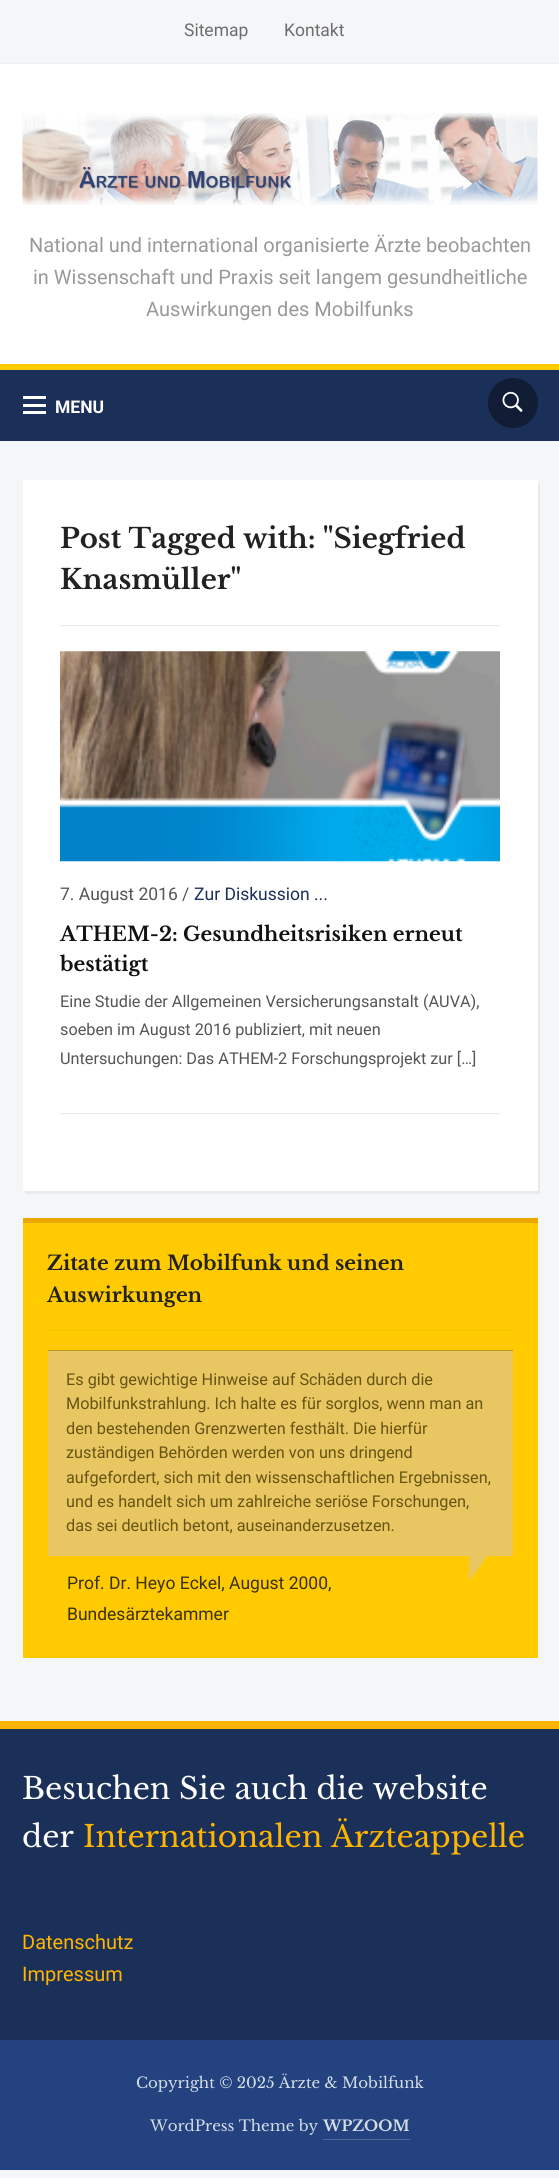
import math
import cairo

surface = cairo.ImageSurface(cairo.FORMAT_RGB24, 559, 2178)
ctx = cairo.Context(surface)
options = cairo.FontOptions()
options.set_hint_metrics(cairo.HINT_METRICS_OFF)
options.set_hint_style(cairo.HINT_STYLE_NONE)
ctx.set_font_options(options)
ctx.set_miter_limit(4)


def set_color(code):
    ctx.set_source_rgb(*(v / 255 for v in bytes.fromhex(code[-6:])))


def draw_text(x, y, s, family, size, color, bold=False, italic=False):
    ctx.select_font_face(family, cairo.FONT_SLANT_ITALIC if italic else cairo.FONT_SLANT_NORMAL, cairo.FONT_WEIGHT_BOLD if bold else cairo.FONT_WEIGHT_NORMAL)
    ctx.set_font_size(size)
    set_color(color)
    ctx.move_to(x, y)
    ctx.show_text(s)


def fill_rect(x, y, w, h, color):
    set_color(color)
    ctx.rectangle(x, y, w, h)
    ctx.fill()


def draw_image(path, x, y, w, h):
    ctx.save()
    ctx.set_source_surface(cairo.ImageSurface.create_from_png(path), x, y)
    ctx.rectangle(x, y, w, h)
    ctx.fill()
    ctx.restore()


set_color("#f4f6f8")
ctx.paint()
fill_rect(0, 64, 559, 300, "#ffffff")
fill_rect(0, 63, 559, 1, "#f0f0f0")
draw_text(184, 36, "Sitemap", "Roboto", 17.5, "#6d6d6d")
draw_text(284, 36, "Kontakt", "Roboto", 17.5, "#6d6d6d")
draw_image("assets/img1.png", 22, 113, 516, 92)
draw_text(29, 252, "National und international organisierte Ärzte beobachten", "Roboto", 20, "#999999")
draw_text(33, 284, "in Wissenschaft und Praxis seit langem gesundheitliche", "Roboto", 20, "#999999")
draw_text(146, 316, "Auswirkungen des Mobilfunks", "Roboto", 20, "#999999")
fill_rect(0, 370, 559, 71, "#1b3058")
fill_rect(0, 364, 559, 6, "#ffcb00")
fill_rect(23, 396, 23, 3, "#ffffff")
fill_rect(23, 404, 23, 3, "#ffffff")
fill_rect(23, 411, 23, 3, "#ffffff")
draw_text(55, 413, "MENU", "Roboto", 17.5, "#ffffff", bold=True)
set_color("#101d35")
ctx.new_path()
ctx.arc(513, 403, 25, 0, 2 * math.pi)
ctx.fill()
draw_image("assets/img2.png", 502, 391, 21, 21)
set_color("#e8eaec")
ctx.new_path()
ctx.move_to(25, 1191)
ctx.line_to(25, 1194)
ctx.line_to(540, 1194)
ctx.line_to(540, 483)
ctx.line_to(538, 483)
ctx.line_to(538, 1191)
ctx.close_path()
ctx.fill()
fill_rect(23, 480, 515, 711, "#ffffff")
draw_text(60, 548, "Post Tagged with: \"Siegfried", "Libre Baskerville", 27.5, "#222222", bold=True)
draw_text(60, 589, "Knasmüller\"", "Libre Baskerville", 27.5, "#222222", bold=True)
fill_rect(60, 625, 440, 1, "#e7e7e7")
fill_rect(60, 1113, 440, 1, "#e7e7e7")
draw_image("assets/img3.png", 60, 651, 440, 211)
draw_text(60, 900, "7. August 2016 /", "Roboto", 17.5, "#555555")
draw_text(194, 900, "Zur Diskussion ...", "Roboto", 17.5, "#1b3058")
draw_text(60, 941, "ATHEM-2: Gesundheitsrisiken erneut", "Libre Baskerville", 20, "#111111", bold=True)
draw_text(60, 971, "bestätigt", "Libre Baskerville", 20, "#111111", bold=True)
draw_text(60, 1007, "Eine Studie der Allgemeinen Versicherungsanstalt (AUVA),", "Roboto", 16.25, "#555555")
draw_text(60, 1035, "soeben im August 2016 publiziert, mit neuen", "Roboto", 16.25, "#555555")
draw_text(60, 1064, "Untersuchungen: Das ATHEM-2 Forschungsprojekt zur […]", "Roboto", 16.25, "#555555")
fill_rect(23, 1223, 515, 435, "#ffcb00")
fill_rect(23, 1218, 515, 5, "#eba600")
fill_rect(48, 1330, 465, 1, "#f2c100")
draw_text(47, 1270, "Zitate zum Mobilfunk und seinen", "Libre Baskerville", 20, "#222222", bold=True)
draw_text(47, 1302, "Auswirkungen", "Libre Baskerville", 20, "#222222", bold=True)
fill_rect(48, 1351, 465, 205, "#e8c762")
fill_rect(48, 1350, 465, 1, "#b9972f")
draw_text(66, 1385, "Es gibt gewichtige Hinweise auf Schäden durch die", "Roboto", 16.25, "#675314")
draw_text(66, 1409, "Mobilfunkstrahlung. Ich halte es für sorglos, wenn man an", "Roboto", 16.25, "#675314")
draw_text(66, 1434, "den bestehenden Grenzwerten festhält. Die hierfür", "Roboto", 16.25, "#675314")
draw_text(66, 1458, "zuständigen Behörden werden von uns dringend", "Roboto", 16.25, "#675314")
draw_text(66, 1483, "aufgefordert, sich mit den wissenschaftlichen Ergebnissen,", "Roboto", 16.25, "#675314")
draw_text(66, 1507, "und es handelt sich um zahlreiche seriöse Forschungen,", "Roboto", 16.25, "#675314")
draw_text(66, 1531, "das sei deutlich betont, auseinanderzusetzen.", "Roboto", 16.25, "#675314")
set_color("#e8c762")
ctx.new_path()
ctx.move_to(469, 1581)
ctx.line_to(469, 1556)
ctx.line_to(487.5, 1556)
ctx.close_path()
ctx.fill()
draw_text(67, 1589, "Prof. Dr. Heyo Eckel, August 2000,", "Roboto", 17.5, "#3a3114")
draw_text(67, 1620, "Bundesärztekammer", "Roboto", 17.5, "#3a3114")
fill_rect(0, 1729, 559, 311, "#1b3058")
fill_rect(0, 1721, 559, 8, "#ffb400")
draw_text(22, 1799, "Besuchen Sie auch die website", "Libre Baskerville", 30, "#ffffff")
draw_text(22, 1847, "der", "Libre Baskerville", 30, "#ffffff")
draw_text(83, 1847, "Internationalen Ärzteappelle", "Libre Baskerville", 30, "#ffb400")
draw_text(22, 1949, "Datenschutz", "Roboto", 20, "#ffb400")
draw_text(22, 1981, "Impressum", "Roboto", 20, "#ffb400")
fill_rect(0, 2040, 559, 130, "#23427f")
draw_text(136, 2088, "Copyright © 2025 Ärzte & Mobilfunk", "Libre Baskerville", 15, "#d3dde6")
draw_text(150, 2131, "WordPress Theme by", "Libre Baskerville", 15, "#d3dde6")
draw_text(323, 2131, "WPZOOM", "Libre Baskerville", 15, "#d3dde6", bold=True)
fill_rect(323, 2139, 87, 1, "#4f6899")
surface.write_to_png("output.png")
